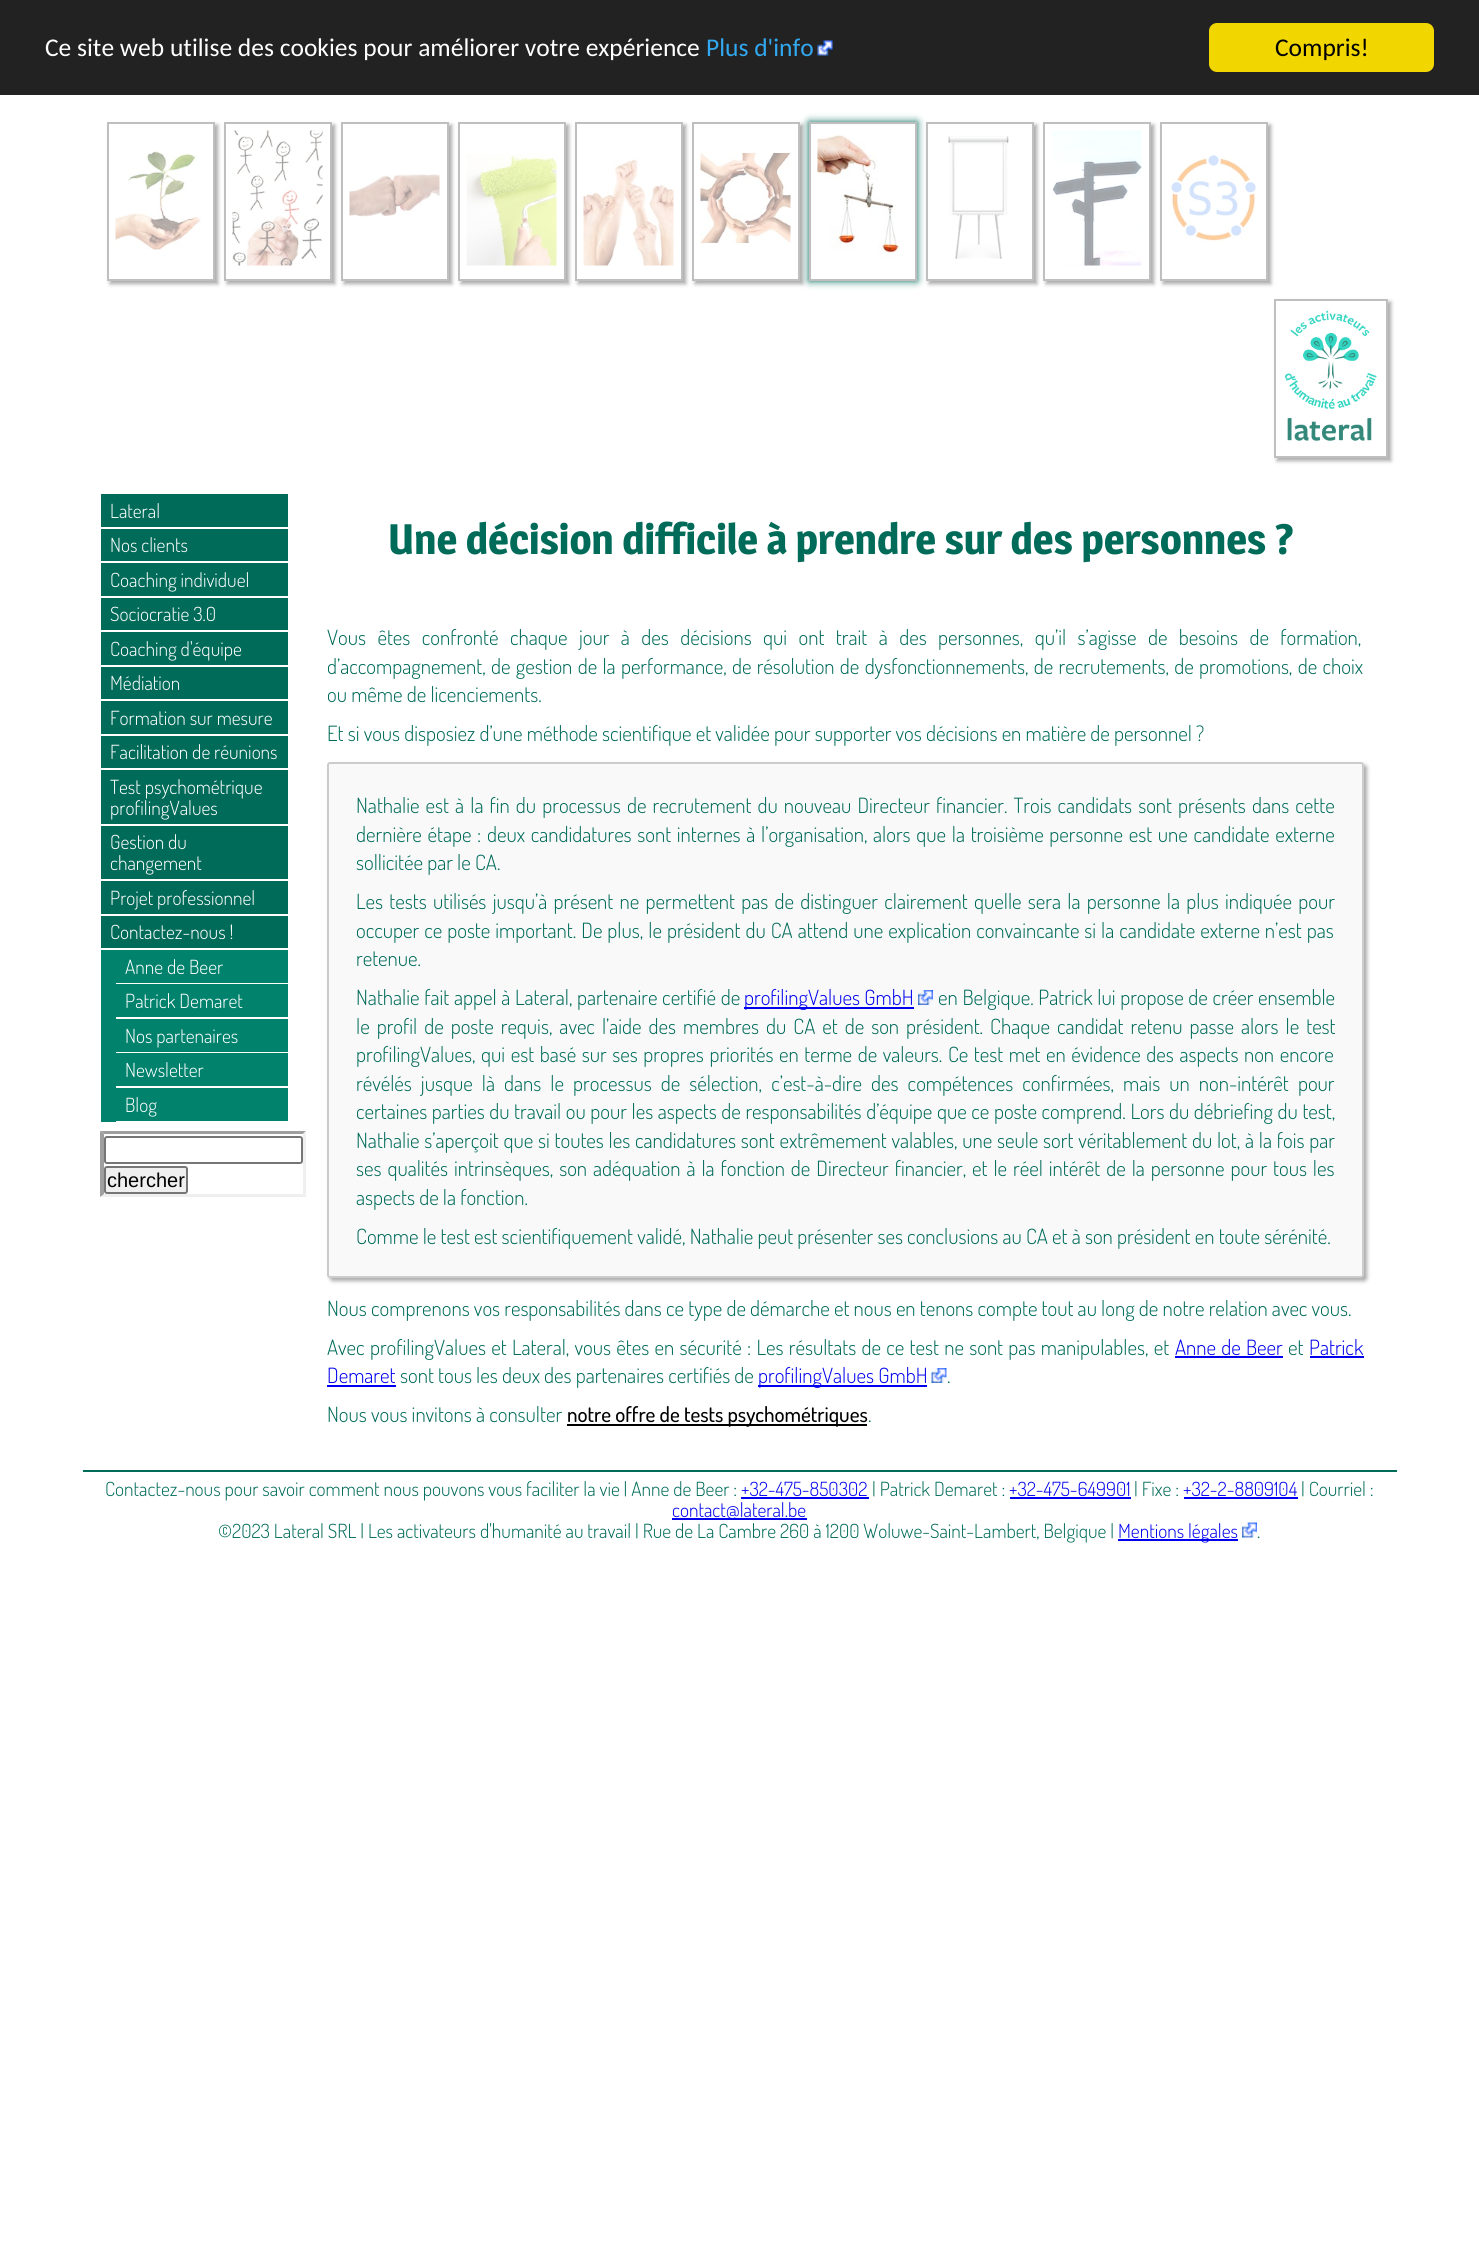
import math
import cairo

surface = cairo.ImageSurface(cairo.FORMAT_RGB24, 1479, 2245)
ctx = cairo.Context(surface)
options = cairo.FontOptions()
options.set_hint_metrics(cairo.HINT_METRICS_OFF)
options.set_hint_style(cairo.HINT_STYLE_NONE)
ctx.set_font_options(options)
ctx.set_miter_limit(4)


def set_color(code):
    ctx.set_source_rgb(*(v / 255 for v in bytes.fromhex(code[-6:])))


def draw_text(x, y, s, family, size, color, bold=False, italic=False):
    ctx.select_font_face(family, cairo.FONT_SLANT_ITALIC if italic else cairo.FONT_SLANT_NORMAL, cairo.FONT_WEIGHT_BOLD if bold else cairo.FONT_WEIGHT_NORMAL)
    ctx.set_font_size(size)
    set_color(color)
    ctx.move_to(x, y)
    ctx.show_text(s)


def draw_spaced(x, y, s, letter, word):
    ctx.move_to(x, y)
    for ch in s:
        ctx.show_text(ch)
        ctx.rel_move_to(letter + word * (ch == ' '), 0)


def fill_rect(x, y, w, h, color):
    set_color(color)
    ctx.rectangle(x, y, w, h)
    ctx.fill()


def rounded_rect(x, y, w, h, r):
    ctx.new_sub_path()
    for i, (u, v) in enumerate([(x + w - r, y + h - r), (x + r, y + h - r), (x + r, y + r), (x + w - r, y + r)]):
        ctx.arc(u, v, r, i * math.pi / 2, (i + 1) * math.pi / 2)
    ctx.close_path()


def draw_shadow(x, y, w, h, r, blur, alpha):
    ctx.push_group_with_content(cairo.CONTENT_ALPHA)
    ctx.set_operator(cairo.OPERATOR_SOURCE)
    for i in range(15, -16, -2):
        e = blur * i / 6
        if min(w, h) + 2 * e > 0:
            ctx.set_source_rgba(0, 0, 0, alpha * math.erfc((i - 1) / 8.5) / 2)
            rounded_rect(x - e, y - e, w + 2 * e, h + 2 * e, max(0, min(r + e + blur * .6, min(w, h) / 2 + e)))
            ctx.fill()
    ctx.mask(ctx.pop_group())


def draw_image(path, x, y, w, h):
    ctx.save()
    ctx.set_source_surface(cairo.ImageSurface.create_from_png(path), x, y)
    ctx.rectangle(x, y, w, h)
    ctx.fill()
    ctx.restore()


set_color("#ffffff")
ctx.paint()
fill_rect(0, 0, 1479, 95, "#222222")
draw_text(45, 56, "Ce site web utilise des cookies pour améliorer votre expérience", "Carlito", 25.5, "#ffffff")
draw_text(706, 56, "Plus d'info", "Carlito", 25.5, "#31a8f0")
draw_image("assets/img1.png", 817, 40, 16, 16)
set_color("#f1d600")
rounded_rect(1209, 23, 225, 49, 8)
ctx.fill()
draw_text(1275, 56, "Compris!", "Carlito", 25.5, "#000000")
ctx.save()
ctx.set_fill_rule(cairo.FILL_RULE_EVEN_ODD)
ctx.new_path()
ctx.move_to(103, 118)
ctx.line_to(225, 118)
ctx.line_to(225, 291)
ctx.line_to(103, 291)
ctx.close_path()
ctx.move_to(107, 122)
ctx.line_to(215, 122)
ctx.line_to(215, 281)
ctx.line_to(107, 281)
ctx.close_path()
ctx.clip()
set_color("#aaaaaa")
draw_shadow(110, 125, 108, 159, 0, 2, 1)
ctx.restore()
ctx.rectangle(108, 123, 106, 157)
set_color("#bfbfbf")
ctx.stroke()
draw_image("assets/img2.png", 115, 151, 86, 99)
ctx.save()
ctx.set_fill_rule(cairo.FILL_RULE_EVEN_ODD)
ctx.new_path()
ctx.move_to(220, 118)
ctx.line_to(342, 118)
ctx.line_to(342, 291)
ctx.line_to(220, 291)
ctx.close_path()
ctx.move_to(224, 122)
ctx.line_to(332, 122)
ctx.line_to(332, 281)
ctx.line_to(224, 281)
ctx.close_path()
ctx.clip()
set_color("#aaaaaa")
draw_shadow(227, 125, 108, 159, 0, 2, 1)
ctx.restore()
ctx.rectangle(225, 123, 106, 157)
ctx.stroke()
draw_image("assets/img3.png", 232, 130, 91, 136)
ctx.save()
ctx.set_fill_rule(cairo.FILL_RULE_EVEN_ODD)
ctx.new_path()
ctx.move_to(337, 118)
ctx.line_to(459, 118)
ctx.line_to(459, 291)
ctx.line_to(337, 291)
ctx.close_path()
ctx.move_to(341, 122)
ctx.line_to(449, 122)
ctx.line_to(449, 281)
ctx.line_to(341, 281)
ctx.close_path()
ctx.clip()
set_color("#aaaaaa")
draw_shadow(344, 125, 108, 159, 0, 2, 1)
ctx.restore()
ctx.rectangle(342, 123, 106, 157)
ctx.stroke()
draw_image("assets/img4.png", 349, 174, 91, 43)
ctx.save()
ctx.set_fill_rule(cairo.FILL_RULE_EVEN_ODD)
ctx.new_path()
ctx.move_to(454, 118)
ctx.line_to(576, 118)
ctx.line_to(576, 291)
ctx.line_to(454, 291)
ctx.close_path()
ctx.move_to(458, 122)
ctx.line_to(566, 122)
ctx.line_to(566, 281)
ctx.line_to(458, 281)
ctx.close_path()
ctx.clip()
set_color("#aaaaaa")
draw_shadow(461, 125, 108, 159, 0, 2, 1)
ctx.restore()
ctx.rectangle(459, 123, 106, 157)
ctx.stroke()
draw_image("assets/img5.png", 466, 154, 91, 112)
ctx.save()
ctx.set_fill_rule(cairo.FILL_RULE_EVEN_ODD)
ctx.new_path()
ctx.move_to(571, 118)
ctx.line_to(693, 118)
ctx.line_to(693, 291)
ctx.line_to(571, 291)
ctx.close_path()
ctx.move_to(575, 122)
ctx.line_to(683, 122)
ctx.line_to(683, 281)
ctx.line_to(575, 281)
ctx.close_path()
ctx.clip()
set_color("#aaaaaa")
draw_shadow(578, 125, 108, 159, 0, 2, 1)
ctx.restore()
ctx.rectangle(576, 123, 106, 157)
ctx.stroke()
draw_image("assets/img6.png", 583, 159, 91, 107)
ctx.save()
ctx.set_fill_rule(cairo.FILL_RULE_EVEN_ODD)
ctx.new_path()
ctx.move_to(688, 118)
ctx.line_to(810, 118)
ctx.line_to(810, 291)
ctx.line_to(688, 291)
ctx.close_path()
ctx.move_to(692, 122)
ctx.line_to(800, 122)
ctx.line_to(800, 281)
ctx.line_to(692, 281)
ctx.close_path()
ctx.clip()
set_color("#aaaaaa")
draw_shadow(695, 125, 108, 159, 0, 2, 1)
ctx.restore()
ctx.rectangle(693, 123, 106, 157)
ctx.stroke()
draw_image("assets/img7.png", 700, 152, 91, 92)
ctx.save()
ctx.set_fill_rule(cairo.FILL_RULE_EVEN_ODD)
ctx.new_path()
ctx.move_to(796, 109)
ctx.line_to(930, 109)
ctx.line_to(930, 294)
ctx.line_to(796, 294)
ctx.close_path()
ctx.move_to(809, 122)
ctx.line_to(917, 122)
ctx.line_to(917, 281)
ctx.line_to(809, 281)
ctx.close_path()
ctx.clip()
set_color("#006b59")
draw_shadow(809, 122, 108, 159, 0, 4, 1)
ctx.restore()
ctx.rectangle(810, 123, 106, 157)
ctx.stroke()
draw_image("assets/img8.png", 817, 135, 84, 123)
ctx.save()
ctx.set_fill_rule(cairo.FILL_RULE_EVEN_ODD)
ctx.new_path()
ctx.move_to(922, 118)
ctx.line_to(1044, 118)
ctx.line_to(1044, 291)
ctx.line_to(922, 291)
ctx.close_path()
ctx.move_to(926, 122)
ctx.line_to(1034, 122)
ctx.line_to(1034, 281)
ctx.line_to(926, 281)
ctx.close_path()
ctx.clip()
set_color("#aaaaaa")
draw_shadow(929, 125, 108, 159, 0, 2, 1)
ctx.restore()
ctx.rectangle(927, 123, 106, 157)
ctx.stroke()
draw_image("assets/img9.png", 948, 136, 61, 123)
ctx.save()
ctx.set_fill_rule(cairo.FILL_RULE_EVEN_ODD)
ctx.new_path()
ctx.move_to(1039, 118)
ctx.line_to(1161, 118)
ctx.line_to(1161, 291)
ctx.line_to(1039, 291)
ctx.close_path()
ctx.move_to(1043, 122)
ctx.line_to(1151, 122)
ctx.line_to(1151, 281)
ctx.line_to(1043, 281)
ctx.close_path()
ctx.clip()
set_color("#aaaaaa")
draw_shadow(1046, 125, 108, 159, 0, 2, 1)
ctx.restore()
ctx.rectangle(1044, 123, 106, 157)
ctx.stroke()
draw_image("assets/img10.png", 1052, 130, 90, 136)
ctx.save()
ctx.set_fill_rule(cairo.FILL_RULE_EVEN_ODD)
ctx.new_path()
ctx.move_to(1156, 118)
ctx.line_to(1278, 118)
ctx.line_to(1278, 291)
ctx.line_to(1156, 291)
ctx.close_path()
ctx.move_to(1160, 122)
ctx.line_to(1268, 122)
ctx.line_to(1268, 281)
ctx.line_to(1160, 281)
ctx.close_path()
ctx.clip()
set_color("#aaaaaa")
draw_shadow(1163, 125, 108, 159, 0, 2, 1)
ctx.restore()
ctx.rectangle(1161, 123, 106, 157)
ctx.stroke()
draw_image("assets/img11.png", 1171, 155, 85, 86)
ctx.save()
ctx.set_fill_rule(cairo.FILL_RULE_EVEN_ODD)
ctx.new_path()
ctx.move_to(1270, 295)
ctx.line_to(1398, 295)
ctx.line_to(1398, 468)
ctx.line_to(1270, 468)
ctx.close_path()
ctx.move_to(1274, 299)
ctx.line_to(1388, 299)
ctx.line_to(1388, 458)
ctx.line_to(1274, 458)
ctx.close_path()
ctx.clip()
set_color("#aaaaaa")
draw_shadow(1277, 302, 114, 159, 0, 2, 1)
ctx.restore()
ctx.rectangle(1275, 300, 112, 157)
ctx.stroke()
draw_image("assets/img12.png", 1284, 310, 93, 131)
fill_rect(101, 494, 187, 454, "#006b59")
fill_rect(101, 527, 187, 2, "#ffffff")
draw_text(110, 518, "Lateral", "Dosis Light", 19.5, "#ffffff")
fill_rect(101, 561, 187, 2, "#ffffff")
draw_text(110, 552, "Nos clients", "Dosis Light", 19.5, "#ffffff")
fill_rect(101, 596, 187, 2, "#ffffff")
draw_text(110, 587, "Coaching individuel", "Dosis Light", 19.5, "#ffffff")
fill_rect(101, 630, 187, 2, "#ffffff")
draw_text(110, 621, "Sociocratie 3.0", "Dosis Light", 19.5, "#ffffff")
fill_rect(101, 665, 187, 2, "#ffffff")
draw_text(110, 656, "Coaching d'équipe", "Dosis Light", 19.5, "#ffffff")
fill_rect(101, 699, 187, 2, "#ffffff")
draw_text(110, 690, "Médiation", "Dosis Light", 19.5, "#ffffff")
fill_rect(101, 734, 187, 2, "#ffffff")
draw_text(110, 725, "Formation sur mesure", "Dosis Light", 19.5, "#ffffff")
fill_rect(101, 768, 187, 2, "#ffffff")
draw_text(110, 759, "Facilitation de réunions", "Dosis Light", 19.5, "#ffffff")
fill_rect(101, 824, 187, 2, "#ffffff")
draw_text(110, 794, "Test psychométrique", "Dosis Light", 19.5, "#ffffff")
draw_text(110, 815, "profilingValues", "Dosis Light", 19.5, "#ffffff")
fill_rect(101, 879, 187, 2, "#ffffff")
draw_text(110, 849, "Gestion du", "Dosis Light", 19.5, "#ffffff")
draw_text(110, 870, "changement", "Dosis Light", 19.5, "#ffffff")
fill_rect(101, 914, 187, 2, "#ffffff")
draw_text(110, 905, "Projet professionnel", "Dosis Light", 19.5, "#ffffff")
draw_text(110, 939, "Contactez-nous !", "Dosis Light", 19.5, "#ffffff")
fill_rect(101, 950, 187, 172, "#00826d")
fill_rect(116, 983, 172, 1, "#ffffff")
draw_text(125, 974, "Anne de Beer", "Dosis Light", 19.5, "#ffffff")
fill_rect(116, 1017, 172, 2, "#ffffff")
draw_text(125, 1008, "Patrick Demaret", "Dosis Light", 19.5, "#ffffff")
fill_rect(116, 1052, 172, 1, "#ffffff")
draw_text(125, 1043, "Nos partenaires", "Dosis Light", 19.5, "#ffffff")
fill_rect(116, 1086, 172, 2, "#ffffff")
draw_text(125, 1077, "Newsletter", "Dosis Light", 19.5, "#ffffff")
fill_rect(116, 1121, 172, 1, "#ffffff")
draw_text(125, 1112, "Blog", "Dosis Light", 19.5, "#ffffff")
set_color("#9f9f9f")
ctx.new_path()
ctx.move_to(100, 1131)
ctx.line_to(306, 1131)
ctx.line_to(303, 1134)
ctx.line_to(104, 1134)
ctx.close_path()
ctx.fill()
set_color("#efefef")
ctx.new_path()
ctx.move_to(306, 1131)
ctx.line_to(306, 1197)
ctx.line_to(303, 1194)
ctx.line_to(303, 1134)
ctx.close_path()
ctx.fill()
ctx.new_path()
ctx.move_to(306, 1197)
ctx.line_to(100, 1197)
ctx.line_to(104, 1194)
ctx.line_to(303, 1194)
ctx.close_path()
ctx.fill()
set_color("#9f9f9f")
ctx.new_path()
ctx.move_to(100, 1197)
ctx.line_to(100, 1131)
ctx.line_to(104, 1134)
ctx.line_to(104, 1194)
ctx.close_path()
ctx.fill()
rounded_rect(105, 1137, 197, 26, 2)
set_color("#767676")
ctx.stroke()
set_color("#efefef")
rounded_rect(105, 1167, 82, 26, 2)
ctx.fill_preserve()
set_color("#767676")
ctx.stroke()
draw_text(107, 1187, "chercher", "Liberation Sans", 20, "#000000")
draw_text(388, 554, "Une décision difficile à prendre sur des personnes ?", "Magra", 42, "#006b59", bold=True)
ctx.select_font_face("Dosis Light")
ctx.set_font_size(21)
draw_spaced(327, 645, "Vous êtes confronté chaque jour à des décisions qui ont trait à des personnes, qu’il s’agisse de besoins de formation,", 0, 7.25)
draw_spaced(327, 674, "d’accompagnement, de gestion de la performance, de résolution de dysfonctionnements, de recrutements, de promotions, de choix", 0, 1.1)
draw_text(327, 702, "ou même de licenciements.", "Dosis Light", 21, "#006b59")
draw_text(327, 741, "Et si vous disposiez d’une méthode scientifique et validée pour supporter vos décisions en matière de personnel ?", "Dosis Light", 21, "#006b59")
set_color("#aaaaaa")
draw_shadow(330, 765, 1037, 516, 3, 2, 1)
set_color("#f9f9f9")
rounded_rect(328, 763, 1035, 514, 2)
ctx.fill_preserve()
set_color("#cccccc")
ctx.stroke()
set_color("#006b59")
draw_spaced(356, 813, "Nathalie est à la fin du processus de recrutement du nouveau Directeur financier. Trois candidats sont présents dans cette", 0, 1.9)
draw_spaced(356, 842, "dernière étape : deux candidatures sont internes à l’organisation, alors que la troisième personne est une candidate externe", 0, 1.5)
draw_text(356, 870, "sollicitée par le CA.", "Dosis Light", 21, "#006b59")
draw_spaced(356, 909, "Les tests utilisés jusqu’à présent ne permettent pas de distinguer clairement quelle sera la personne la plus indiquée pour", 0, 2.1)
draw_spaced(356, 938, "occuper ce poste important. De plus, le président du CA attend une explication convaincante si la candidate externe n’est pas", 0, 0.8)
draw_text(356, 966, "retenue.", "Dosis Light", 21, "#006b59")
draw_spaced(356, 1005, "Nathalie fait appel à Lateral, partenaire certifié de", 0, 0.5)
fill_rect(744, 1007, 170, 2, "#0000ee")
draw_text(744, 1005, "profilingValues GmbH", "Dosis Light", 21, "#0000ee")
draw_image("assets/img13.png", 918, 990, 15, 15)
set_color("#006b59")
draw_spaced(938, 1005, "en Belgique. Patrick lui propose de créer ensemble", 0, 0.5)
draw_spaced(356, 1034, "le profil de poste requis, avec l’aide des membres du CA et de son président. Chaque candidat retenu passe alors le test", 0, 2.8)
draw_spaced(356, 1062, "profilingValues, qui est basé sur ses propres priorités en terme de valeurs. Ce test met en évidence des aspects non encore", 0, 1.4)
draw_spaced(356, 1091, "révélés jusque là dans le processus de sélection, c’est-à-dire des compétences confirmées, mais un non-intérêt pour", 0, 4.9)
draw_spaced(356, 1119, "certaines parties du travail ou pour les aspects de responsabilités d’équipe que ce poste comprend. Lors du débriefing du test,", 0, 0.4)
draw_spaced(356, 1148, "Nathalie s’aperçoit que si toutes les candidatures sont extrêmement valables, une seule sort véritablement du lot, à la fois par", 0, 0.6)
draw_spaced(356, 1176, "ses qualités intrinsèques, son adéquation à la fonction de Directeur financier, et le réel intérêt de la personne pour tous les", 0, 1.75)
draw_text(356, 1205, "aspects de la fonction.", "Dosis Light", 21, "#006b59")
draw_text(356, 1244, "Comme le test est scientifiquement validé, Nathalie peut présenter ses conclusions au CA et à son président en toute sérénité.", "Dosis Light", 21, "#006b59")
draw_text(327, 1316, "Nous comprenons vos responsabilités dans ce type de démarche et nous en tenons compte tout au long de notre relation avec vous.", "Dosis Light", 21, "#006b59")
draw_spaced(327, 1355, "Avec profilingValues et Lateral, vous êtes en sécurité : Les résultats de ce test ne sont pas manipulables, et", 0, 1.1)
set_color("#0000ee")
draw_spaced(1175, 1355, "Anne de Beer", 0, 1)
fill_rect(1175, 1356, 108, 2, "#0000ee")
draw_text(1288, 1355, "et", "Dosis Light", 21, "#006b59")
draw_text(1309, 1355, "Patrick", "Dosis Light", 21, "#0000ee")
fill_rect(1310, 1356, 54, 2, "#0000ee")
draw_text(327, 1383, "Demaret", "Dosis Light", 21, "#0000ee")
fill_rect(327, 1385, 69, 2, "#0000ee")
draw_text(400, 1383, "sont tous les deux des partenaires certifiés de", "Dosis Light", 21, "#006b59")
fill_rect(758, 1385, 169, 2, "#0000ee")
draw_text(758, 1383, "profilingValues GmbH", "Dosis Light", 21, "#0000ee")
draw_image("assets/img14.png", 931, 1368, 16, 15)
draw_text(947, 1383, ".", "Dosis Light", 21, "#006b59")
draw_text(327, 1422, "Nous vous invitons à consulter", "Dosis Light", 21, "#006b59")
fill_rect(567, 1424, 300, 2, "#000000")
draw_text(567, 1422, "notre offre de tests psychométriques", "Dosis Medium", 21, "#000000")
draw_text(868, 1422, ".", "Dosis Light", 21, "#006b59")
fill_rect(83, 1470, 1314, 2, "#006b59")
draw_text(105, 1496, "Contactez-nous pour savoir comment nous pouvons vous faciliter la vie | Anne de Beer :", "Dosis Light", 19.5, "#006b59")
draw_text(741, 1496, "+32-475-850302", "Dosis Light", 19.5, "#0000ee")
fill_rect(741, 1497, 128, 2, "#0000ee")
draw_text(872, 1496, "| Patrick Demaret :", "Dosis Light", 19.5, "#006b59")
draw_text(1009, 1496, "+32-475-649901", "Dosis Light", 19.5, "#0000ee")
fill_rect(1010, 1497, 121, 2, "#0000ee")
draw_text(1134, 1496, "| Fixe :", "Dosis Light", 19.5, "#006b59")
draw_text(1183, 1496, "+32-2-8809104", "Dosis Light", 19.5, "#0000ee")
fill_rect(1184, 1497, 114, 2, "#0000ee")
draw_text(1301, 1496, "| Courriel :", "Dosis Light", 19.5, "#006b59")
fill_rect(672, 1518, 135, 2, "#0000ee")
draw_text(672, 1517, "contact@lateral.be", "Dosis Light", 19.5, "#0000ee")
draw_text(218, 1538, "©2023 Lateral SRL | Les activateurs d'humanité au travail | Rue de La Cambre 260 à 1200 Woluwe-Saint-Lambert, Belgique |", "Dosis Light", 19.5, "#006b59")
fill_rect(1118, 1539, 120, 2, "#0000ee")
draw_text(1118, 1538, "Mentions légales", "Dosis Light", 19.5, "#0000ee")
draw_image("assets/img15.png", 1242, 1522, 15, 16)
draw_text(1257, 1538, ".", "Dosis Light", 19.5, "#006b59")
surface.write_to_png("output.png")
